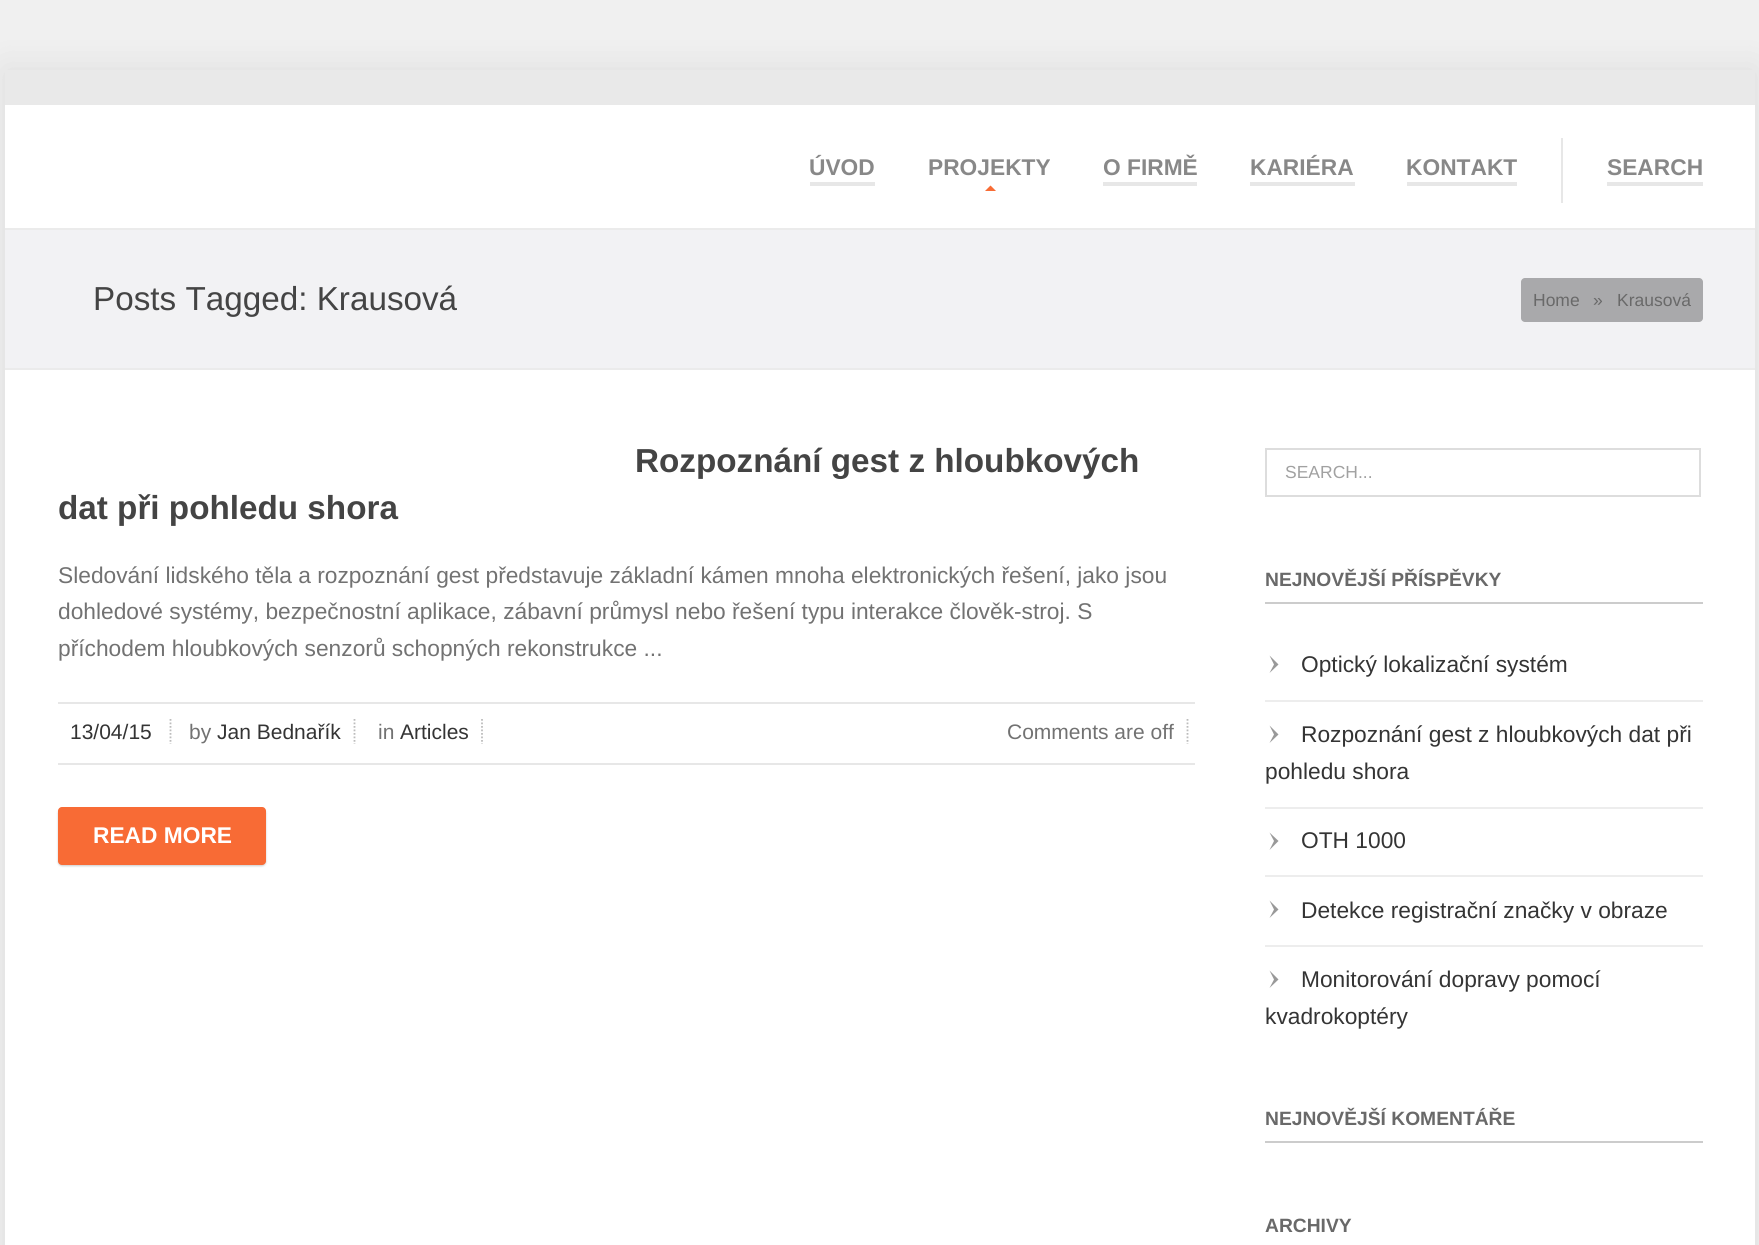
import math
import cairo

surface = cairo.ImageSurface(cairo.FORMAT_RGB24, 1759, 1245)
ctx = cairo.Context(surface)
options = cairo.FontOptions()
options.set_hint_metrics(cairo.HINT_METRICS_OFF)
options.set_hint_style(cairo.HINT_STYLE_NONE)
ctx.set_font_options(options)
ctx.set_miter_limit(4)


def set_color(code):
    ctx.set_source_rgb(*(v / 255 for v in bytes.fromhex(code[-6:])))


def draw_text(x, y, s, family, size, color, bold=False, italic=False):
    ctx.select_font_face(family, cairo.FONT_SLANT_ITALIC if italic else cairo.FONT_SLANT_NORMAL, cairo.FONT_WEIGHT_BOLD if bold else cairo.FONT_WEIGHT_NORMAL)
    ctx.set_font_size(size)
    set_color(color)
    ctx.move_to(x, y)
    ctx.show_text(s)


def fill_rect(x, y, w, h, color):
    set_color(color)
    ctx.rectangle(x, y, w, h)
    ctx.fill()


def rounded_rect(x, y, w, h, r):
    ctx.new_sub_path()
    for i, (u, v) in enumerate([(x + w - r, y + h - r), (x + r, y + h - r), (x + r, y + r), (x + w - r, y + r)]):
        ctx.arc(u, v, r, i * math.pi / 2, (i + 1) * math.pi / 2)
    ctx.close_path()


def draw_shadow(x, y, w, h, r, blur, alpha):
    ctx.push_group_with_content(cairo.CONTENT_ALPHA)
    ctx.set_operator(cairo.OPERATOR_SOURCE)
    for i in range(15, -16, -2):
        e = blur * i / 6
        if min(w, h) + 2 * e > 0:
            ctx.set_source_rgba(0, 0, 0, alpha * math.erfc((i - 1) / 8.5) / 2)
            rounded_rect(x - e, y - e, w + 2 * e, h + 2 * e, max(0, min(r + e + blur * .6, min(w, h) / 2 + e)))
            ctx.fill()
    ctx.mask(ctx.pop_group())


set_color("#f0f0f0")
ctx.paint()
set_color("#1a1a1a")
draw_shadow(5, 70, 1750, 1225, 0, 16.5, 0.1)
fill_rect(5, 105, 1750, 1140, "#ffffff")
fill_rect(5, 70, 1750, 35, "#e9e9e9")
fill_rect(5, 228, 1750, 2, "#ebebeb")
fill_rect(810, 182, 65, 4, "#e7e7e7")
draw_text(809, 175, "ÚVOD", "Liberation Sans", 22.75, "#888888", bold=True)
draw_text(928, 175, "PROJEKTY", "Liberation Sans", 22.75, "#888888", bold=True)
set_color("#f86c35")
ctx.new_path()
ctx.move_to(996, 191)
ctx.line_to(985, 191)
ctx.line_to(990.5, 185.5)
ctx.close_path()
ctx.fill()
fill_rect(1103, 182, 94, 4, "#e7e7e7")
draw_text(1103, 175, "O FIRMĚ", "Liberation Sans", 22.75, "#888888", bold=True)
fill_rect(1250, 182, 105, 4, "#e7e7e7")
draw_text(1250, 175, "KARIÉRA", "Liberation Sans", 22.75, "#888888", bold=True)
fill_rect(1407, 182, 110, 4, "#e7e7e7")
draw_text(1406, 175, "KONTAKT", "Liberation Sans", 22.75, "#888888", bold=True)
fill_rect(1561, 138, 2, 65, "#e7e7e7")
fill_rect(1607, 182, 96, 4, "#e7e7e7")
draw_text(1607, 175, "SEARCH", "Liberation Sans", 22.75, "#888888", bold=True)
fill_rect(5, 230, 1750, 138, "#f2f2f4")
fill_rect(5, 368, 1750, 2, "#ebebeb")
draw_text(93, 310, "Posts Tagged: Krausová", "Liberation Sans", 33.25, "#444444")
set_color("#a9a9ab")
rounded_rect(1521, 278, 182, 44, 4)
ctx.fill()
draw_text(1533, 306, "Home", "Liberation Sans", 17.5, "#696969")
draw_text(1593, 306, "»", "Liberation Sans", 17.5, "#696969")
draw_text(1617, 306, "Krausová", "Liberation Sans", 17.5, "#696969")
draw_text(635, 472, "Rozpoznání gest z hloubkových", "Liberation Sans", 33.25, "#444444", bold=True)
draw_text(58, 519, "dat při pohledu shora", "Liberation Sans", 33.25, "#444444", bold=True)
draw_text(58, 583, "Sledování lidského těla a rozpoznání gest představuje základní kámen mnoha elektronických řešení, jako jsou", "Liberation Sans", 22.75, "#727272")
draw_text(58, 619, "dohledové systémy, bezpečnostní aplikace, zábavní průmysl nebo řešení typu interakce člověk-stroj. S", "Liberation Sans", 22.75, "#727272")
draw_text(58, 656, "příchodem hloubkových senzorů schopných rekonstrukce ...", "Liberation Sans", 22.75, "#727272")
fill_rect(58, 702, 1137, 2, "#e7e7e7")
fill_rect(58, 763, 1137, 2, "#e7e7e7")
draw_text(70, 739, "13/04/15", "Liberation Sans", 21, "#343434")
ctx.new_path()
ctx.move_to(170.5, 719)
ctx.line_to(170.5, 744)
set_color("#bcbcbc")
ctx.set_line_width(1.8)
ctx.set_dash([1.75, 1.75])
ctx.stroke()
draw_text(189, 739, "by", "Liberation Sans", 21, "#727272")
draw_text(217, 739, "Jan Bednařík", "Liberation Sans", 21, "#343434")
ctx.new_path()
ctx.move_to(354.5, 719)
ctx.line_to(354.5, 744)
set_color("#bcbcbc")
ctx.stroke()
draw_text(378, 739, "in", "Liberation Sans", 21, "#727272")
draw_text(400, 739, "Articles", "Liberation Sans", 21, "#343434")
ctx.new_path()
ctx.move_to(482, 719)
ctx.line_to(482, 744)
set_color("#bcbcbc")
ctx.stroke()
draw_text(1007, 739, "Comments are off", "Liberation Sans", 21, "#727272")
ctx.new_path()
ctx.move_to(1187.5, 719)
ctx.line_to(1187.5, 744)
set_color("#bcbcbc")
ctx.stroke()
set_color("#000000")
draw_shadow(58, 809, 208, 57, 4, 1, 0.2)
set_color("#f86b35")
rounded_rect(58, 807, 208, 58, 4)
ctx.fill()
draw_text(93, 843, "READ MORE", "Liberation Sans", 22.75, "#ffffff", bold=True)
ctx.rectangle(1266, 449, 434, 47)
set_color("#dddddd")
ctx.set_line_width(2)
ctx.set_dash([])
ctx.stroke()
draw_text(1285, 478, "SEARCH...", "Liberation Sans", 17.5, "#a1a1a1")
draw_text(1265, 586, "NEJNOVĚJŠÍ PŘÍSPĚVKY", "Liberation Sans", 19.25, "#696969", bold=True)
fill_rect(1265, 602, 438, 2, "#cccccc")
fill_rect(1265, 700, 438, 2, "#ededed")
set_color("#999999")
ctx.new_path()
ctx.move_to(1269.5, 673)
ctx.line_to(1278.5, 664.5)
ctx.line_to(1269.5, 655.5)
ctx.line_to(1274, 664.5)
ctx.close_path()
ctx.fill()
draw_text(1301, 672, "Optický lokalizační systém", "Liberation Sans", 22.75, "#343434")
fill_rect(1265, 807, 438, 2, "#ededed")
set_color("#999999")
ctx.new_path()
ctx.move_to(1269.5, 743)
ctx.line_to(1278.5, 734.5)
ctx.line_to(1269.5, 725.5)
ctx.line_to(1274, 734.5)
ctx.close_path()
ctx.fill()
draw_text(1301, 742, "Rozpoznání gest z hloubkových dat při", "Liberation Sans", 22.75, "#343434")
draw_text(1265, 779, "pohledu shora", "Liberation Sans", 22.75, "#343434")
fill_rect(1265, 875, 438, 2, "#ededed")
set_color("#999999")
ctx.new_path()
ctx.move_to(1269.5, 850)
ctx.line_to(1278.5, 841)
ctx.line_to(1269.5, 832.5)
ctx.line_to(1274, 841)
ctx.close_path()
ctx.fill()
draw_text(1301, 848, "OTH 1000", "Liberation Sans", 22.75, "#343434")
fill_rect(1265, 945, 438, 2, "#ededed")
set_color("#999999")
ctx.new_path()
ctx.move_to(1269.5, 918)
ctx.line_to(1278.5, 909.5)
ctx.line_to(1269.5, 900.5)
ctx.line_to(1274, 909.5)
ctx.close_path()
ctx.fill()
draw_text(1301, 918, "Detekce registrační značky v obraze", "Liberation Sans", 22.75, "#343434")
set_color("#999999")
ctx.new_path()
ctx.move_to(1269.5, 988)
ctx.line_to(1278.5, 979.5)
ctx.line_to(1269.5, 970.5)
ctx.line_to(1274, 979.5)
ctx.close_path()
ctx.fill()
draw_text(1301, 987, "Monitorování dopravy pomocí", "Liberation Sans", 22.75, "#343434")
draw_text(1265, 1024, "kvadrokoptéry", "Liberation Sans", 22.75, "#343434")
draw_text(1265, 1125, "NEJNOVĚJŠÍ KOMENTÁŘE", "Liberation Sans", 19.25, "#696969", bold=True)
fill_rect(1265, 1141, 438, 2, "#cccccc")
draw_text(1265, 1232, "ARCHIVY", "Liberation Sans", 19.25, "#696969", bold=True)
surface.write_to_png("output.png")
